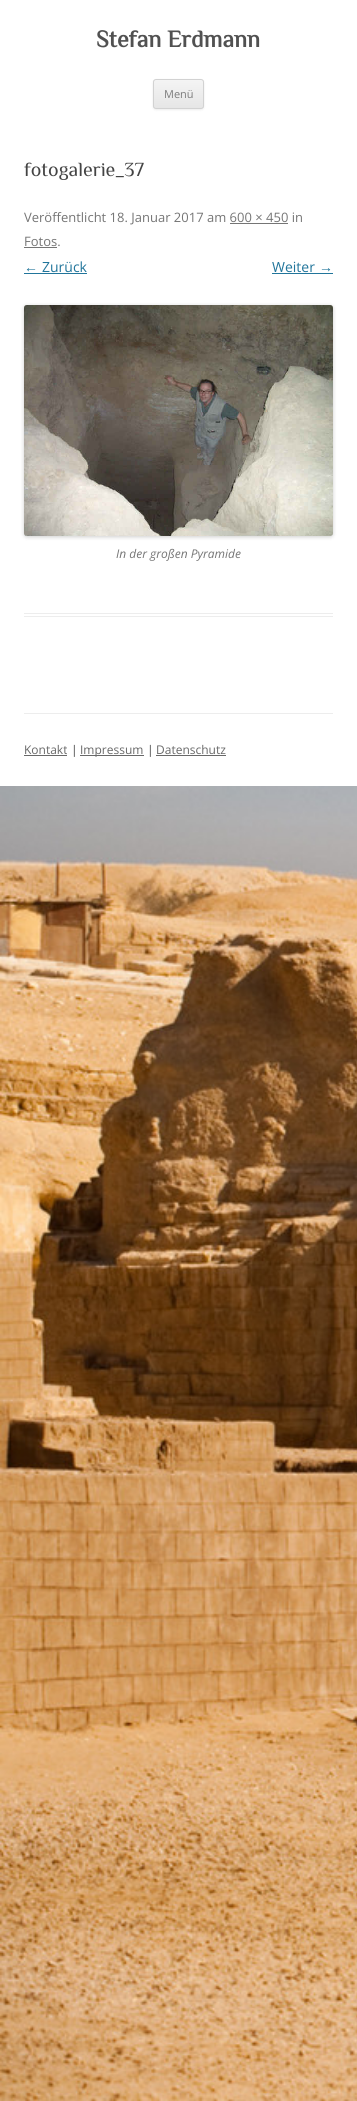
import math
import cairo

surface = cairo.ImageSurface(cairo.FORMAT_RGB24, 357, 2101)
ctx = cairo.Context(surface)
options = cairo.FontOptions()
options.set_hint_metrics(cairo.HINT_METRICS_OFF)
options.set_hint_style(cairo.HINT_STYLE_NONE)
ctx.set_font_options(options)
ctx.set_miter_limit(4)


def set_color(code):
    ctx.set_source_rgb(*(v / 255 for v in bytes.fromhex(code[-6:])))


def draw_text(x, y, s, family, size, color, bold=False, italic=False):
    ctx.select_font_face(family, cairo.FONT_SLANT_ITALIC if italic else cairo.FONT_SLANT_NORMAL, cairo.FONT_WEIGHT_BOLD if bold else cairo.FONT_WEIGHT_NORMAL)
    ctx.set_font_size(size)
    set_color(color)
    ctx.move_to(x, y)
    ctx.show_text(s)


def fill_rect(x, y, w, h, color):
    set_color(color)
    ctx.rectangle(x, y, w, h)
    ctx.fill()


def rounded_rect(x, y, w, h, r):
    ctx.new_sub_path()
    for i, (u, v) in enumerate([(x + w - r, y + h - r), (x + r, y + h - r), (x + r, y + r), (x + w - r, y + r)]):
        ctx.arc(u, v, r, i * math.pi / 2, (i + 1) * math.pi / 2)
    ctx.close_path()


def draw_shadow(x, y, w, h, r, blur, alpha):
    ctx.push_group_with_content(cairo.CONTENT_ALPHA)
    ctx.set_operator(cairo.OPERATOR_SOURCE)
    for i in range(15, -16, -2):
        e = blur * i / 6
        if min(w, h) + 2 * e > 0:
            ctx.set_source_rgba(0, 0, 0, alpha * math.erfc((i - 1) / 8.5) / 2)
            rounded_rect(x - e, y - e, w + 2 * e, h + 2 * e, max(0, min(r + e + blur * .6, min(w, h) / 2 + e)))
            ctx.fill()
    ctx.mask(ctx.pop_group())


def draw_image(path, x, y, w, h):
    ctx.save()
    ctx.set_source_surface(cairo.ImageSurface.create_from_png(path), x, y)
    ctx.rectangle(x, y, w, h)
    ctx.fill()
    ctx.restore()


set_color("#ffffff")
ctx.paint()
draw_image("assets/img1.png", 0, 786, 357, 1315)
draw_text(96, 47, "Stefan Erdmann", "Philosopher", 24, "#515151", bold=True)
set_color("#404040")
draw_shadow(153, 80, 51, 30, 3, 1, 0.1)
ctx.save()
rounded_rect(153, 79, 51, 30, 3)
ctx.clip()
gradient = cairo.LinearGradient(179, 80, 179, 108)
gradient.add_color_stop_rgba(0, 0.957, 0.957, 0.957, 1)
gradient.add_color_stop_rgba(1, 0.902, 0.902, 0.902, 1)
ctx.set_source(gradient)
ctx.rectangle(153, 80, 51, 28)
ctx.fill()
ctx.restore()
rounded_rect(153.5, 79.5, 50, 29, 2.5)
set_color("#d2d2d2")
ctx.set_line_width(1)
ctx.stroke()
draw_text(164, 98, "Menü", "Open Sans", 11, "#7c7c7c")
fill_rect(24, 613, 309, 1, "#ededed")
fill_rect(24, 616, 309, 1, "#ededed")
draw_text(24, 176, "fotogalerie_37", "Philosopher", 20, "#444444")
draw_text(24, 222, "Veröffentlicht 18. Januar 2017 am 600 × 450 in", "Open Sans", 13, "#757575")
fill_rect(230, 223, 58, 1, "#757575")
draw_text(24, 246, "Fotos.", "Open Sans", 13, "#757575")
fill_rect(24, 247, 33, 1, "#757575")
draw_text(24, 272, "←", "Liberation Sans", 14, "#21759b")
fill_rect(24, 273, 63, 1, "#21759b")
draw_text(42, 272, "Zurück", "Open Sans", 14, "#21759b")
draw_text(272, 272, "Weiter", "Open Sans", 14, "#21759b")
draw_text(319, 272, "→", "Liberation Sans", 14, "#21759b")
fill_rect(272, 273, 61, 1, "#21759b")
set_color("#000000")
draw_shadow(24, 306, 309, 231, 3, 2, 0.2)
draw_image("assets/img2.png", 24, 305, 309, 231)
draw_text(116, 558, "In der großen Pyramide", "Open Sans", 12, "#757575", italic=True)
fill_rect(24, 713, 309, 1, "#ededed")
draw_text(24, 754, "Kontakt", "Open Sans", 12, "#686868")
fill_rect(24, 755, 43, 1, "#686868")
draw_text(71, 754, "|", "Open Sans", 12, "#444444")
fill_rect(80, 755, 64, 1, "#686868")
draw_text(80, 754, "Impressum", "Open Sans", 12, "#686868")
draw_text(147, 754, "|", "Open Sans", 12, "#444444")
draw_text(156, 754, "Datenschutz", "Open Sans", 12, "#686868")
fill_rect(156, 755, 70, 1, "#686868")
surface.write_to_png("output.png")
